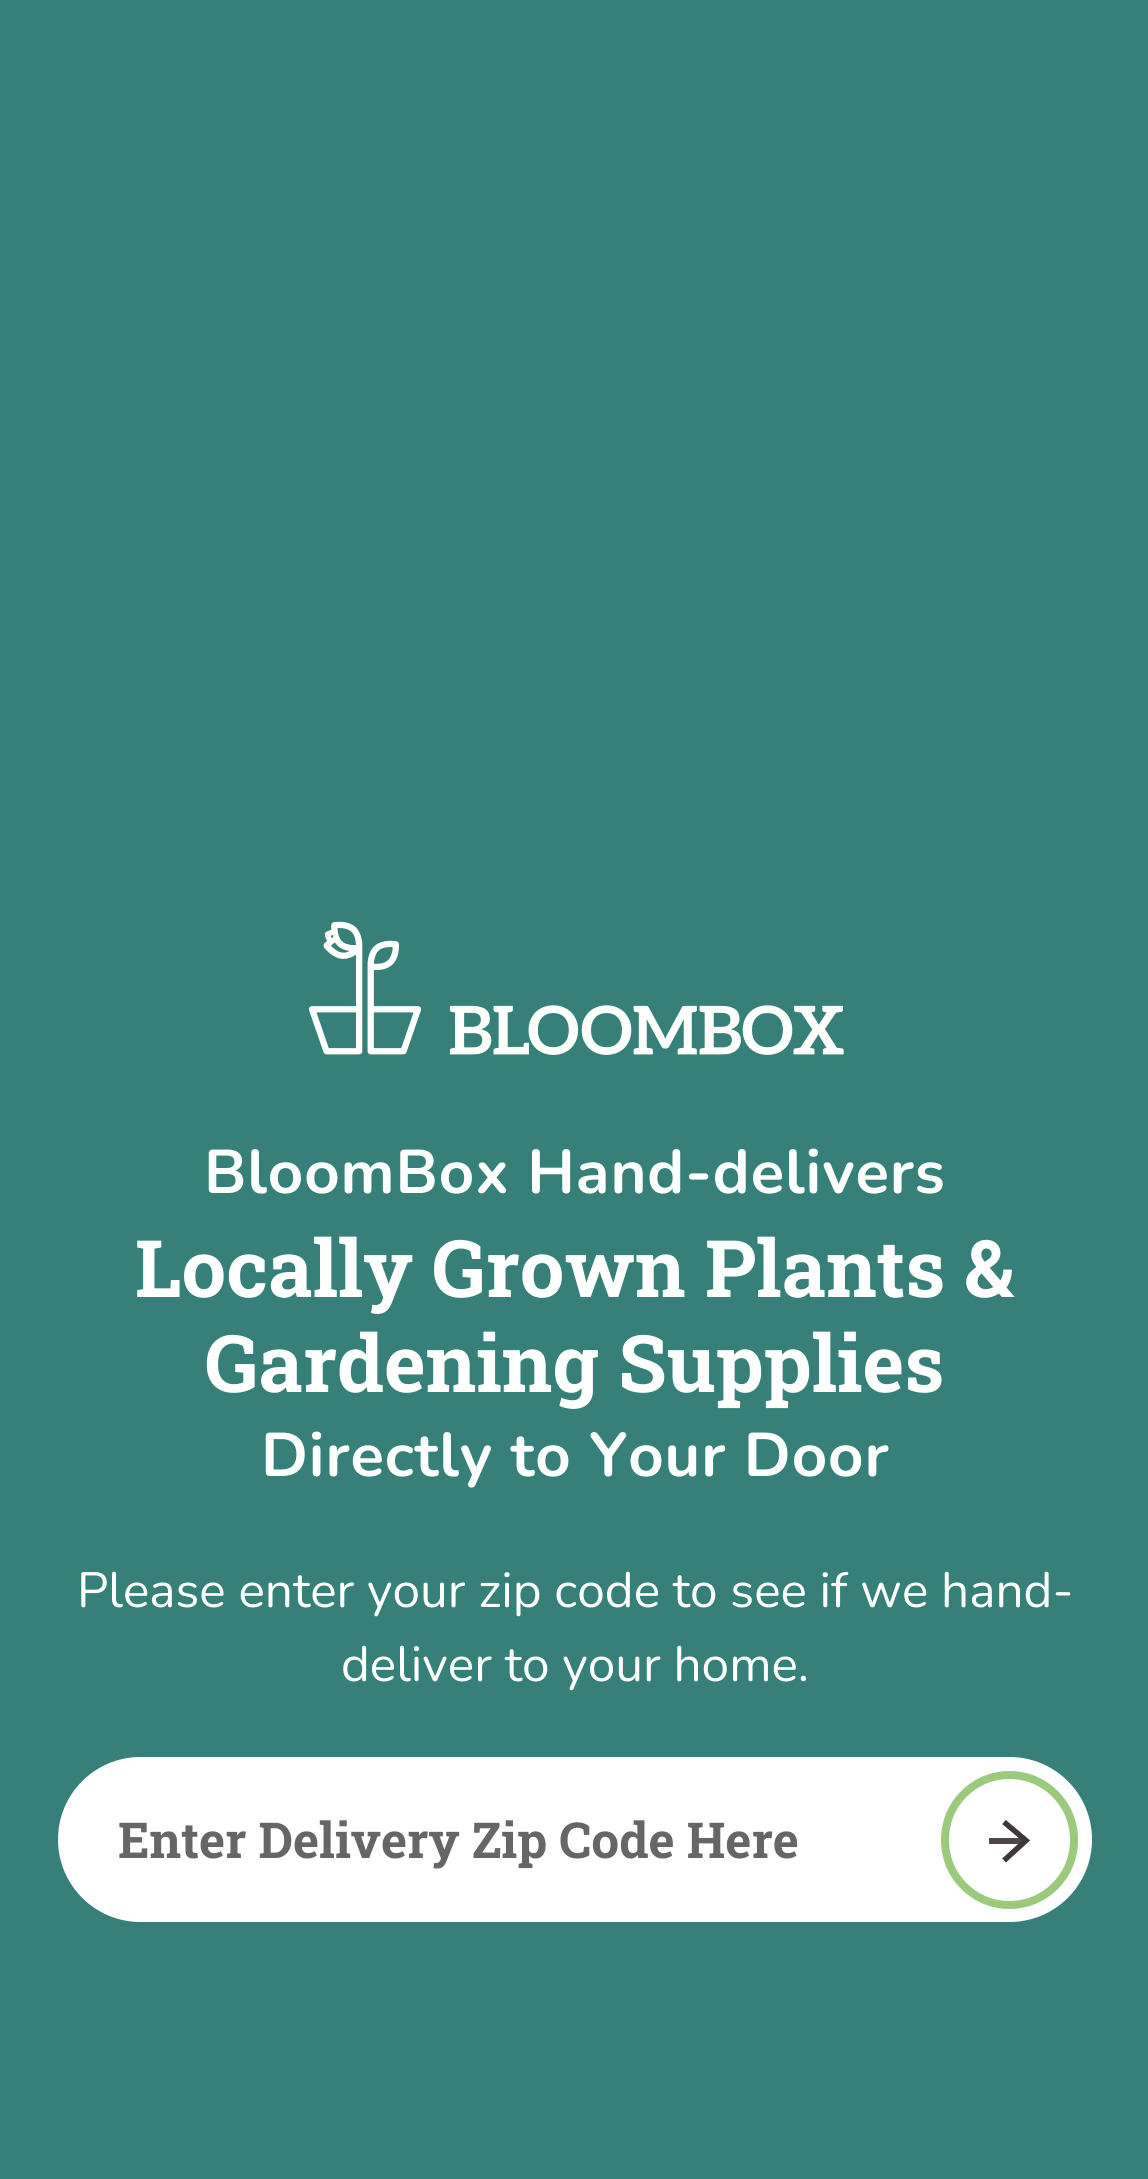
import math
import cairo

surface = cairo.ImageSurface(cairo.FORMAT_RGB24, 1148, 2179)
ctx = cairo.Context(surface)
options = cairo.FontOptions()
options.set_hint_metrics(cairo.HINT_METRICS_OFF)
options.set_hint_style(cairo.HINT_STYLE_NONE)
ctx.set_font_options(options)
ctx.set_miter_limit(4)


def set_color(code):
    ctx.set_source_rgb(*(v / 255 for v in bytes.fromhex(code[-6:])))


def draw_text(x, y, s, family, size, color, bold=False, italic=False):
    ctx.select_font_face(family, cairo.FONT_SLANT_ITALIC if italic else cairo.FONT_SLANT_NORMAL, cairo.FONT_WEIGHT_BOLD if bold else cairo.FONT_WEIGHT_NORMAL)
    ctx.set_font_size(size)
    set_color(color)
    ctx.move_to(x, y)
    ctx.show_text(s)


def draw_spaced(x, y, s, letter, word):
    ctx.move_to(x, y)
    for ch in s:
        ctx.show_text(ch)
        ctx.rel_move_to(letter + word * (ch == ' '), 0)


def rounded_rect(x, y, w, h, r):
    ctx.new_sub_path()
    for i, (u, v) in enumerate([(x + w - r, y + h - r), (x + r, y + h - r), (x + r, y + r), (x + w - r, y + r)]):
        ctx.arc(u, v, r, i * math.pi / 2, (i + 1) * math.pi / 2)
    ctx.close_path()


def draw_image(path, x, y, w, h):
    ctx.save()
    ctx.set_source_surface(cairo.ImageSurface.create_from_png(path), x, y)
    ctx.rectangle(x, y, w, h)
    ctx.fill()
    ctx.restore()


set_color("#368079")
ctx.paint()
draw_image("assets/img1.png", 308, 921, 536, 134)
ctx.select_font_face("Nunito", cairo.FONT_SLANT_NORMAL, cairo.FONT_WEIGHT_BOLD)
ctx.set_font_size(61.6)
set_color("#ffffff")
draw_spaced(204, 1193, "BloomBox Hand-delivers", 0.9, 0)
draw_text(135, 1297, "Locally Grown Plants &", "Roboto Slab", 79.25, "#ffffff", bold=True)
draw_text(205, 1392, "Gardening Supplies", "Roboto Slab", 79.25, "#ffffff", bold=True)
ctx.select_font_face("Nunito", cairo.FONT_SLANT_NORMAL, cairo.FONT_WEIGHT_BOLD)
ctx.set_font_size(61.6)
draw_spaced(261, 1476, "Directly to Your Door", 0.9, 0)
draw_text(77, 1607, "Please enter your zip code to see if we hand-", "Nunito", 49.5, "#ffffff")
draw_text(341, 1681, "deliver to your home.", "Nunito", 49.5, "#ffffff")
rounded_rect(58, 1757, 1034, 165, 82.5)
ctx.fill()
draw_text(118, 1858, "Enter Delivery Zip Code Here", "Roboto Slab", 49.5, "#666666", bold=True)
rounded_rect(945, 1775, 129, 130, 64.5)
set_color("#9cca7c")
ctx.set_line_width(8)
ctx.stroke()
ctx.new_path()
ctx.move_to(1004, 1860.5)
ctx.line_to(1026, 1840.5)
ctx.line_to(1004, 1822)
set_color("#3e3838")
ctx.set_line_width(5.5)
ctx.stroke()
ctx.set_source_rgba(0.243, 0.22, 0.22, 0.92)
ctx.rectangle(989, 1838, 35, 6)
ctx.fill()
surface.write_to_png("output.png")
